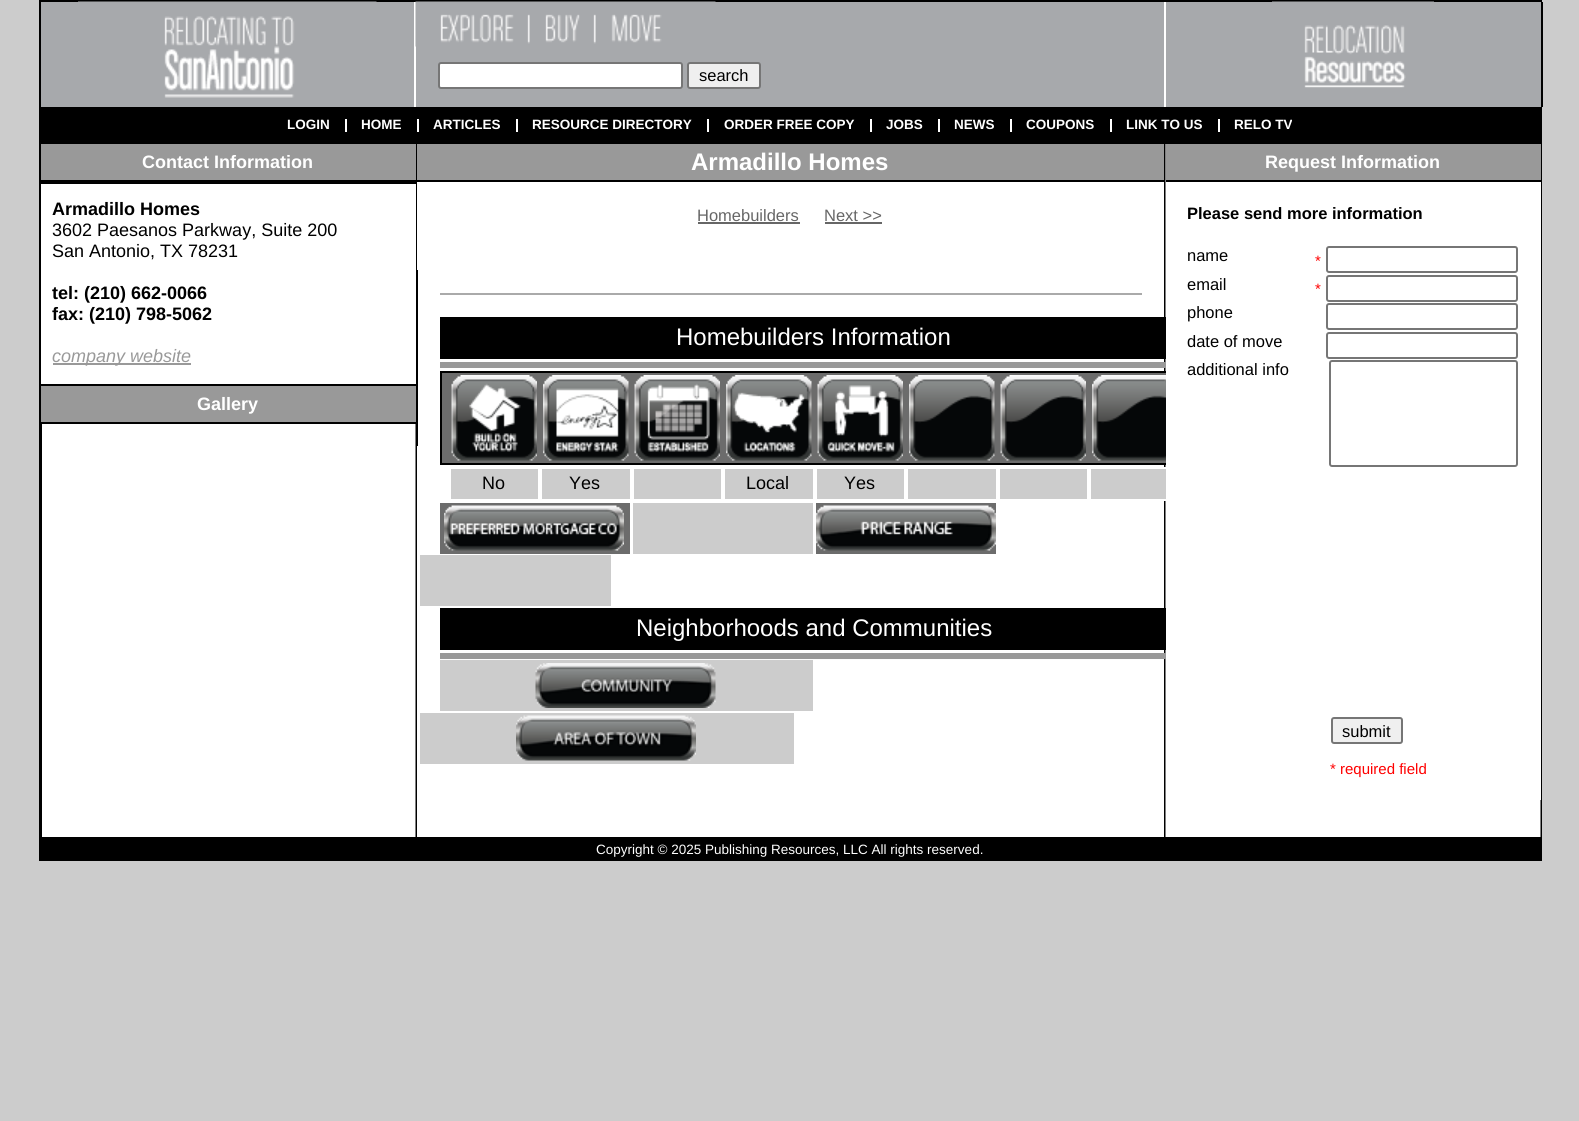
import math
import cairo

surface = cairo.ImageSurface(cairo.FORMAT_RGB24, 1579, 1121)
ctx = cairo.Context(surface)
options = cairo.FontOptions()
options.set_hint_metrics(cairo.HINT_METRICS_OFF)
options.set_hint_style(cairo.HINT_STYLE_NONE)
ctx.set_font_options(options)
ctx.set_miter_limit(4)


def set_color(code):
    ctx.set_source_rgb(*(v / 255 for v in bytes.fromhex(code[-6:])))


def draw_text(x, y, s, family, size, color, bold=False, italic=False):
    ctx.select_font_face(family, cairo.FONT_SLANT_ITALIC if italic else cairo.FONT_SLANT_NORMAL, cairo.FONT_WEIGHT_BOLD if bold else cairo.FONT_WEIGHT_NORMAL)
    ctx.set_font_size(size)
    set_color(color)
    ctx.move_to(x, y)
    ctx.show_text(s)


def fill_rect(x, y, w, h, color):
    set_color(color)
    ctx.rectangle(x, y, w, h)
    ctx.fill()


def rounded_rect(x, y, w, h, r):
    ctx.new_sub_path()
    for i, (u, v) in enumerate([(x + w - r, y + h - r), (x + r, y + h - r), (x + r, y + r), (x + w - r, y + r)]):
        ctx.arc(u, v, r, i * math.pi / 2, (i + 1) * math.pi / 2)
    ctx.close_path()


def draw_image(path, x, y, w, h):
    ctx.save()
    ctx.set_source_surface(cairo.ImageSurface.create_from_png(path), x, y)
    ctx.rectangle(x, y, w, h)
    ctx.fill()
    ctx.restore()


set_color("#cccccc")
ctx.paint()
fill_rect(42, 144, 1499, 693, "#ffffff")
fill_rect(39, 144, 3, 693, "#000000")
draw_image("assets/img1.png", 415, 424, 2, 413)
draw_image("assets/img2.png", 1164, 144, 2, 693)
draw_image("assets/img3.png", 1540, 144, 2, 693)
fill_rect(39, 0, 1503, 2, "#000000")
fill_rect(41, 2, 1500, 105, "#a7a9ac")
fill_rect(39, 2, 2, 105, "#000000")
draw_image("assets/img4.png", 78, 1, 299, 97)
fill_rect(414, 2, 2, 105, "#ffffff")
draw_image("assets/img5.png", 415, 1, 301, 46)
rounded_rect(439, 63, 243, 25, 2)
ctx.fill_preserve()
set_color("#767676")
ctx.stroke()
set_color("#efefef")
rounded_rect(688, 63, 72, 25, 2)
ctx.fill_preserve()
set_color("#767676")
ctx.stroke()
draw_text(699, 81, "search", "Liberation Sans", 16.5, "#000000")
fill_rect(1164, 2, 2, 105, "#ffffff")
draw_image("assets/img6.png", 1272, 1, 162, 87)
fill_rect(1541, 2, 2, 105, "#000000")
fill_rect(39, 107, 1503, 37, "#000000")
fill_rect(345, 119, 2, 13, "#ffffff")
draw_text(287, 129, "LOGIN", "Liberation Sans", 13.5, "#ffffff", bold=True)
fill_rect(417, 119, 2, 13, "#ffffff")
draw_text(361, 129, "HOME", "Liberation Sans", 13.5, "#ffffff", bold=True)
fill_rect(516, 119, 2, 13, "#ffffff")
draw_text(433, 129, "ARTICLES", "Liberation Sans", 13.5, "#ffffff", bold=True)
fill_rect(707, 119, 2, 13, "#ffffff")
draw_text(532, 129, "RESOURCE DIRECTORY", "Liberation Sans", 13.5, "#ffffff", bold=True)
fill_rect(870, 119, 2, 13, "#ffffff")
draw_text(724, 129, "ORDER FREE COPY", "Liberation Sans", 13.5, "#ffffff", bold=True)
fill_rect(938, 119, 2, 13, "#ffffff")
draw_text(886, 129, "JOBS", "Liberation Sans", 13.5, "#ffffff", bold=True)
fill_rect(1010, 119, 2, 13, "#ffffff")
draw_text(954, 129, "NEWS", "Liberation Sans", 13.5, "#ffffff", bold=True)
fill_rect(1110, 119, 2, 13, "#ffffff")
draw_text(1026, 129, "COUPONS", "Liberation Sans", 13.5, "#ffffff", bold=True)
fill_rect(1218, 119, 2, 13, "#ffffff")
draw_text(1126, 129, "LINK TO US", "Liberation Sans", 13.5, "#ffffff", bold=True)
draw_text(1234, 129, "RELO TV", "Liberation Sans", 13.5, "#ffffff", bold=True)
fill_rect(416, 144, 2, 302, "#000000")
fill_rect(41, 144, 375, 36, "#999999")
fill_rect(41, 180, 375, 4, "#000000")
draw_text(142, 168, "Contact Information", "Liberation Sans", 18, "#ffffff", bold=True)
fill_rect(41, 184, 1, 200, "#ffffff")
fill_rect(41, 384, 375, 2, "#000000")
draw_text(52, 215, "Armadillo Homes", "Liberation Sans", 18, "#000000", bold=True)
draw_text(52, 236, "3602 Paesanos Parkway, Suite 200", "Liberation Sans", 18, "#000000")
draw_text(52, 257, "San Antonio, TX 78231", "Liberation Sans", 18, "#000000")
draw_text(52, 299, "tel: (210) 662-0066", "Liberation Sans", 18, "#000000", bold=True)
draw_text(52, 320, "fax: (210) 798-5062", "Liberation Sans", 18, "#000000", bold=True)
fill_rect(53, 363, 138, 2, "#999999")
draw_text(52, 362, "company website", "Liberation Sans", 18, "#999999", italic=True)
fill_rect(41, 386, 375, 36, "#999999")
fill_rect(41, 422, 375, 2, "#000000")
draw_text(197, 410, "Gallery", "Liberation Sans", 18, "#ffffff", bold=True)
fill_rect(417, 144, 747, 36, "#999999")
fill_rect(417, 180, 747, 2, "#000000")
draw_text(691, 170, "Armadillo Homes", "Liberation Sans", 24, "#ffffff", bold=True)
fill_rect(417, 182, 1, 88, "#ffffff")
draw_text(697, 221, "Homebuilders", "Liberation Sans", 16.5, "#666666")
fill_rect(698, 222, 102, 2, "#666666")
draw_text(824, 221, "Next >>", "Liberation Sans", 16.5, "#666666")
fill_rect(825, 222, 57, 2, "#666666")
fill_rect(440, 293, 702, 2, "#aaaaaa")
fill_rect(440, 317, 726, 42, "#000000")
draw_text(676, 345, "Homebuilders Information", "Liberation Sans", 24, "#ffffff")
fill_rect(440, 362, 726, 6, "#999999")
fill_rect(442, 373, 724, 90, "#6c6c6c")
ctx.rectangle(441, 372, 748, 92)
set_color("#000000")
ctx.stroke()
draw_image("assets/img7.png", 451, 375, 86, 86)
draw_image("assets/img8.png", 543, 375, 86, 86)
draw_image("assets/img9.png", 634, 375, 86, 86)
draw_image("assets/img10.png", 726, 375, 86, 86)
draw_image("assets/img11.png", 817, 375, 86, 86)
draw_image("assets/img12.png", 909, 375, 86, 86)
draw_image("assets/img13.png", 1000, 375, 86, 86)
draw_image("assets/img14.png", 1092, 375, 74, 86)
fill_rect(451, 469, 87, 30, "#cccccc")
draw_text(482, 489, "No", "Liberation Sans", 18, "#000000")
fill_rect(542, 469, 88, 30, "#cccccc")
draw_text(569, 489, "Yes", "Liberation Sans", 18, "#000000")
fill_rect(634, 469, 87, 30, "#cccccc")
fill_rect(725, 469, 88, 30, "#cccccc")
draw_text(746, 489, "Local", "Liberation Sans", 18, "#000000")
fill_rect(817, 469, 87, 30, "#cccccc")
draw_text(844, 489, "Yes", "Liberation Sans", 18, "#000000")
fill_rect(908, 469, 88, 30, "#cccccc")
fill_rect(1000, 469, 87, 30, "#cccccc")
fill_rect(1091, 469, 75, 30, "#cccccc")
ctx.rectangle(1090, 468, 90, 32)
set_color("#ffffff")
ctx.stroke()
fill_rect(440, 503, 190, 51, "#6c6c6c")
draw_image("assets/img15.png", 444, 505, 180, 46)
fill_rect(633, 503, 180, 51, "#cccccc")
fill_rect(816, 503, 180, 51, "#6c6c6c")
draw_image("assets/img16.png", 816, 505, 180, 46)
fill_rect(420, 555, 191, 51, "#cccccc")
fill_rect(440, 608, 726, 42, "#000000")
draw_text(636, 636, "Neighborhoods and Communities", "Liberation Sans", 24, "#ffffff")
fill_rect(440, 653, 726, 6, "#999999")
fill_rect(440, 660, 373, 51, "#cccccc")
draw_image("assets/img17.png", 535, 663, 181, 45)
fill_rect(420, 713, 374, 51, "#cccccc")
draw_image("assets/img18.png", 516, 715, 180, 46)
fill_rect(1166, 144, 375, 36, "#999999")
fill_rect(1166, 180, 375, 2, "#000000")
draw_text(1265, 168, "Request Information", "Liberation Sans", 18, "#ffffff", bold=True)
fill_rect(1166, 182, 375, 618, "#ffffff")
draw_text(1187, 219, "Please send more information", "Liberation Sans", 16.5, "#000000", bold=True)
draw_text(1187, 261, "name", "Liberation Sans", 16.5, "#000000")
draw_text(1315, 266, "*", "Liberation Sans", 15, "#ff0000")
rounded_rect(1327, 247, 190, 25, 2)
set_color("#767676")
ctx.stroke()
draw_text(1187, 290, "email", "Liberation Sans", 16.5, "#000000")
draw_text(1315, 294, "*", "Liberation Sans", 15, "#ff0000")
rounded_rect(1327, 276, 190, 25, 2)
set_color("#767676")
ctx.stroke()
draw_text(1187, 318, "phone", "Liberation Sans", 16.5, "#000000")
rounded_rect(1327, 304, 190, 25, 2)
set_color("#767676")
ctx.stroke()
draw_text(1187, 347, "date of move", "Liberation Sans", 16.5, "#000000")
rounded_rect(1327, 333, 190, 25, 2)
set_color("#767676")
ctx.stroke()
draw_text(1187, 375, "additional info", "Liberation Sans", 16.5, "#000000")
rounded_rect(1330, 361, 187, 105, 2)
set_color("#767676")
ctx.stroke()
set_color("#efefef")
rounded_rect(1332, 718, 70, 25, 2)
ctx.fill_preserve()
set_color("#767676")
ctx.stroke()
draw_text(1342, 737, "submit", "Liberation Sans", 16.5, "#000000")
draw_text(1330, 774, "* required field", "Liberation Sans", 15, "#ff0000")
fill_rect(39, 837, 1503, 24, "#000000")
draw_text(596, 854, "Copyright © 2025 Publishing Resources, LLC All rights reserved.", "Liberation Sans", 13.5, "#ffffff")
surface.write_to_png("output.png")
